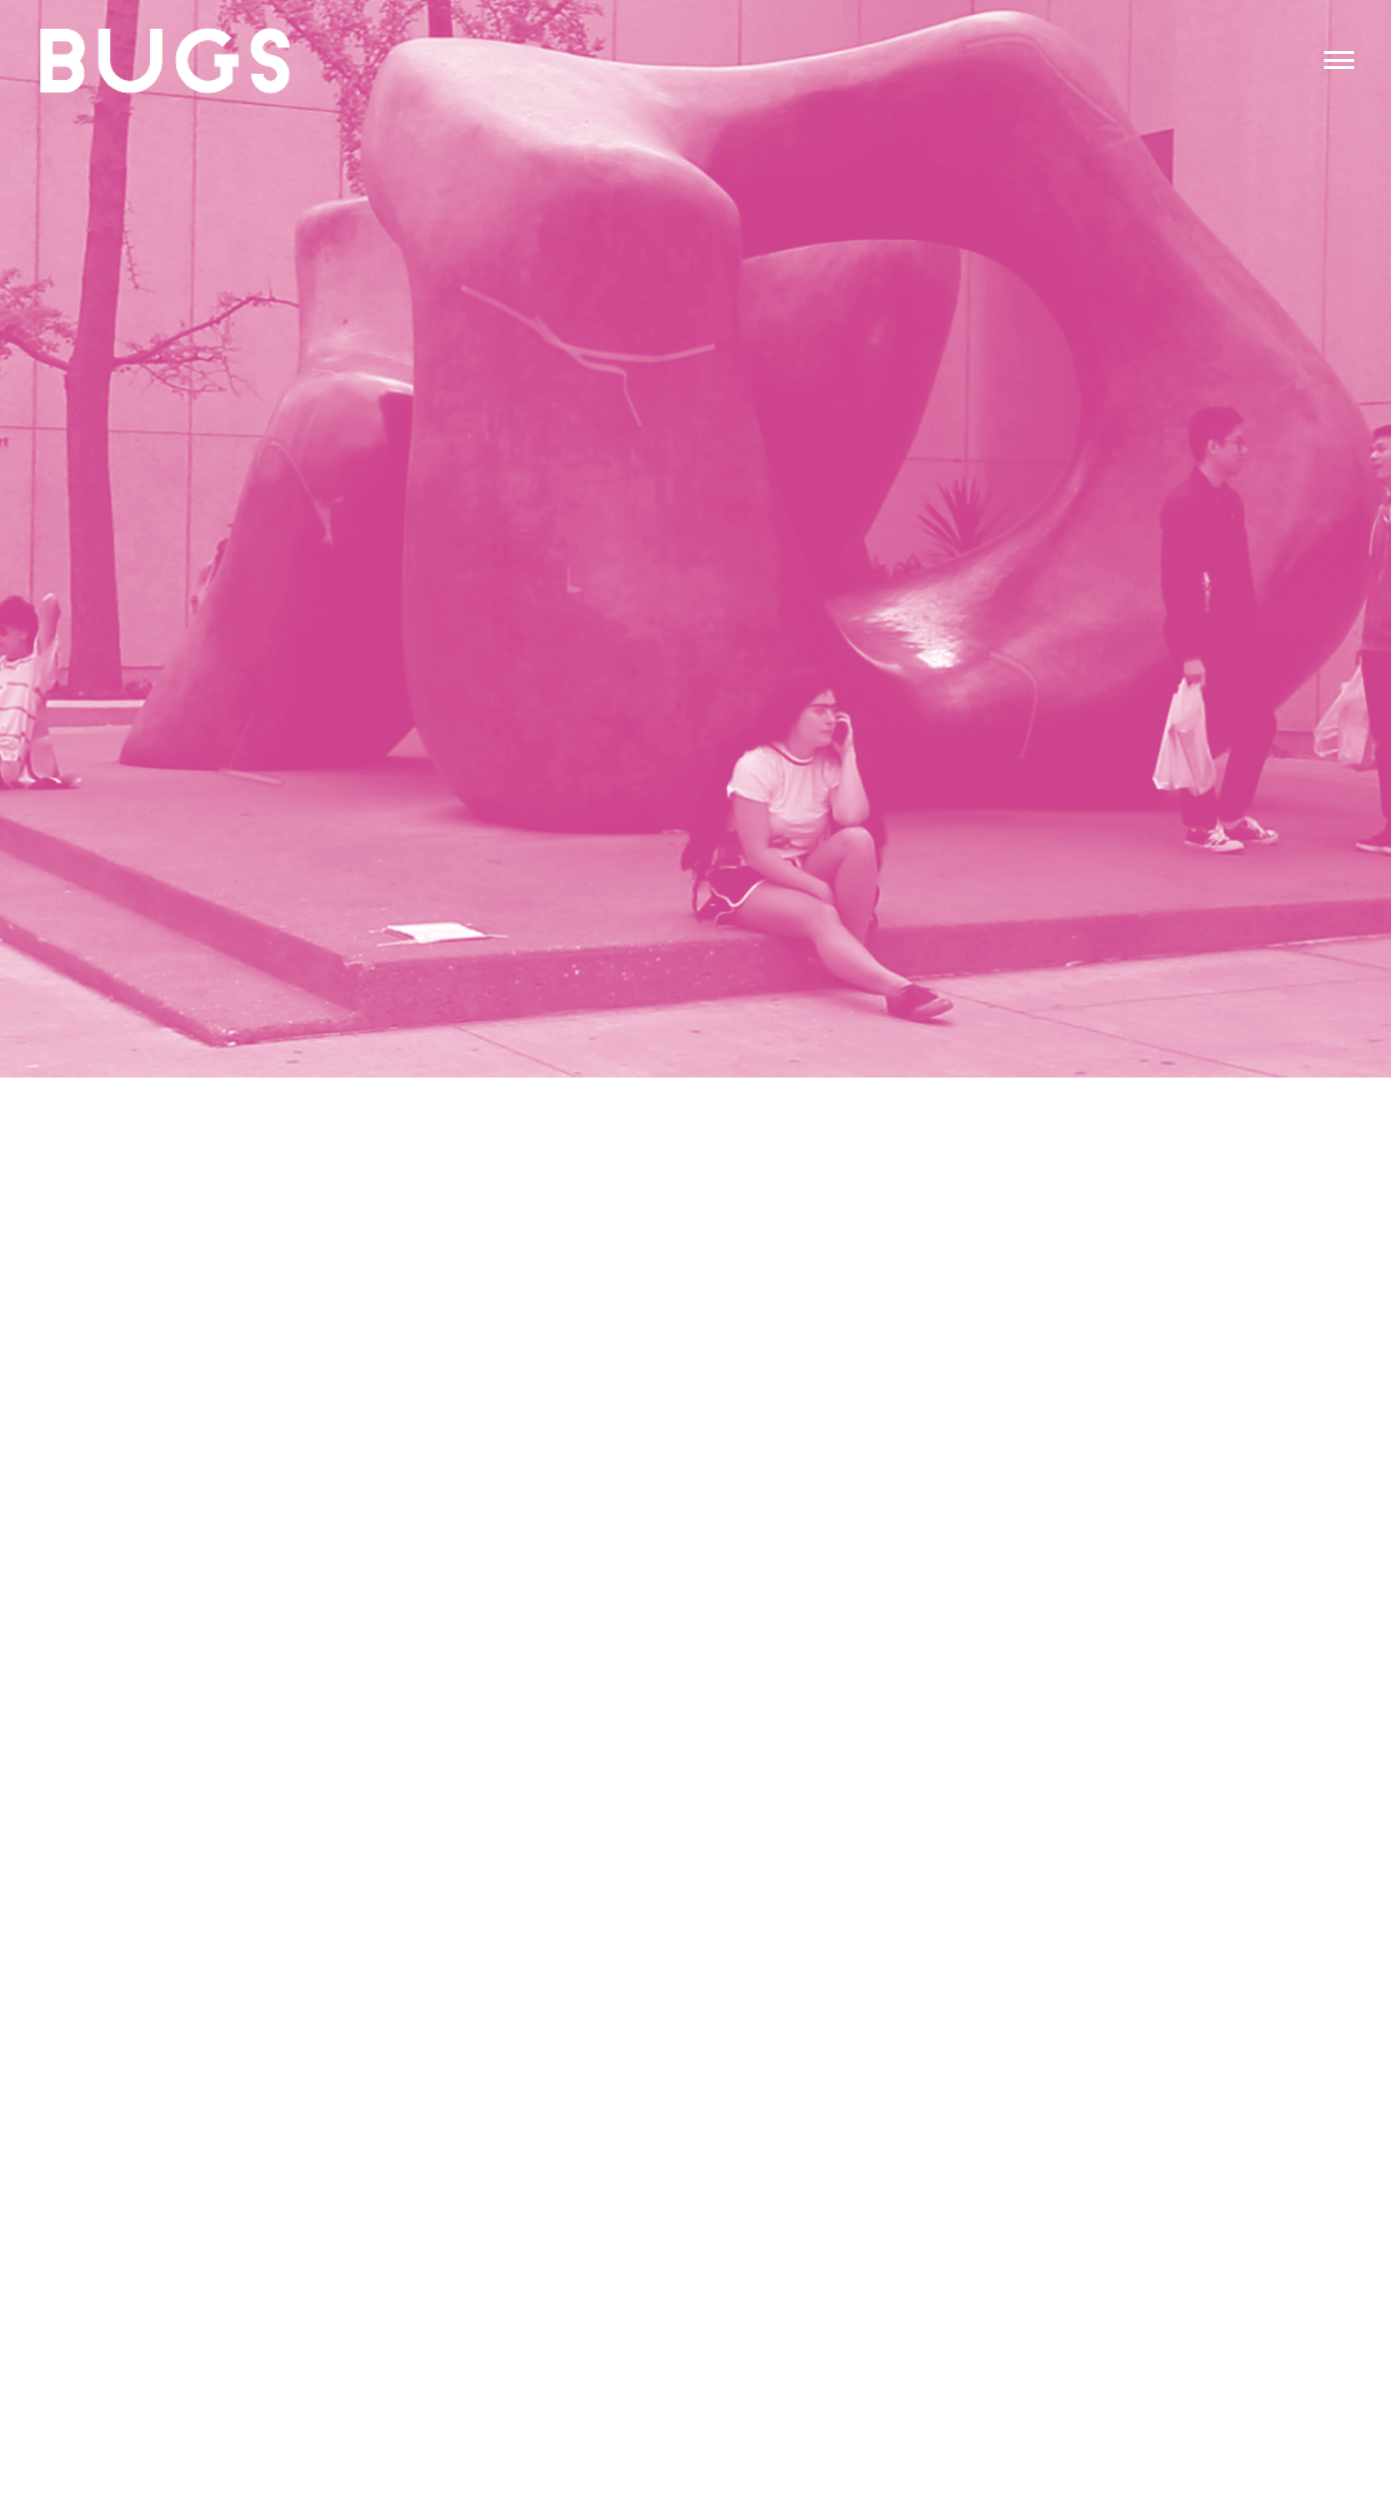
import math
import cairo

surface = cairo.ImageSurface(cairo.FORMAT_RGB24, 1391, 2520)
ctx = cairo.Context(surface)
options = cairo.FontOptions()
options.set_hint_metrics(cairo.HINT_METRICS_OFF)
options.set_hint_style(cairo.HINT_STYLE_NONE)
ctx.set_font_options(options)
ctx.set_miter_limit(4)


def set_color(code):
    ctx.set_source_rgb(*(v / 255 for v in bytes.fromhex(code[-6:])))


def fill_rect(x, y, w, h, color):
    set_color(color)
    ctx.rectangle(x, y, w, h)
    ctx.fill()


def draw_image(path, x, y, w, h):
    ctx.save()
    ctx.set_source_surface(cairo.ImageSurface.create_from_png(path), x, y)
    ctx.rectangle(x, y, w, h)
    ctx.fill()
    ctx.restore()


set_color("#ffffff")
ctx.paint()
draw_image("assets/img1.png", 0, 0, 1391, 1078)
draw_image("assets/img2.png", 39, 27, 251, 67)
fill_rect(1324, 59, 30, 3, "#ffffff")
fill_rect(1324, 51, 30, 3, "#ffffff")
fill_rect(1324, 66, 30, 3, "#ffffff")
surface.write_to_png("output.png")
